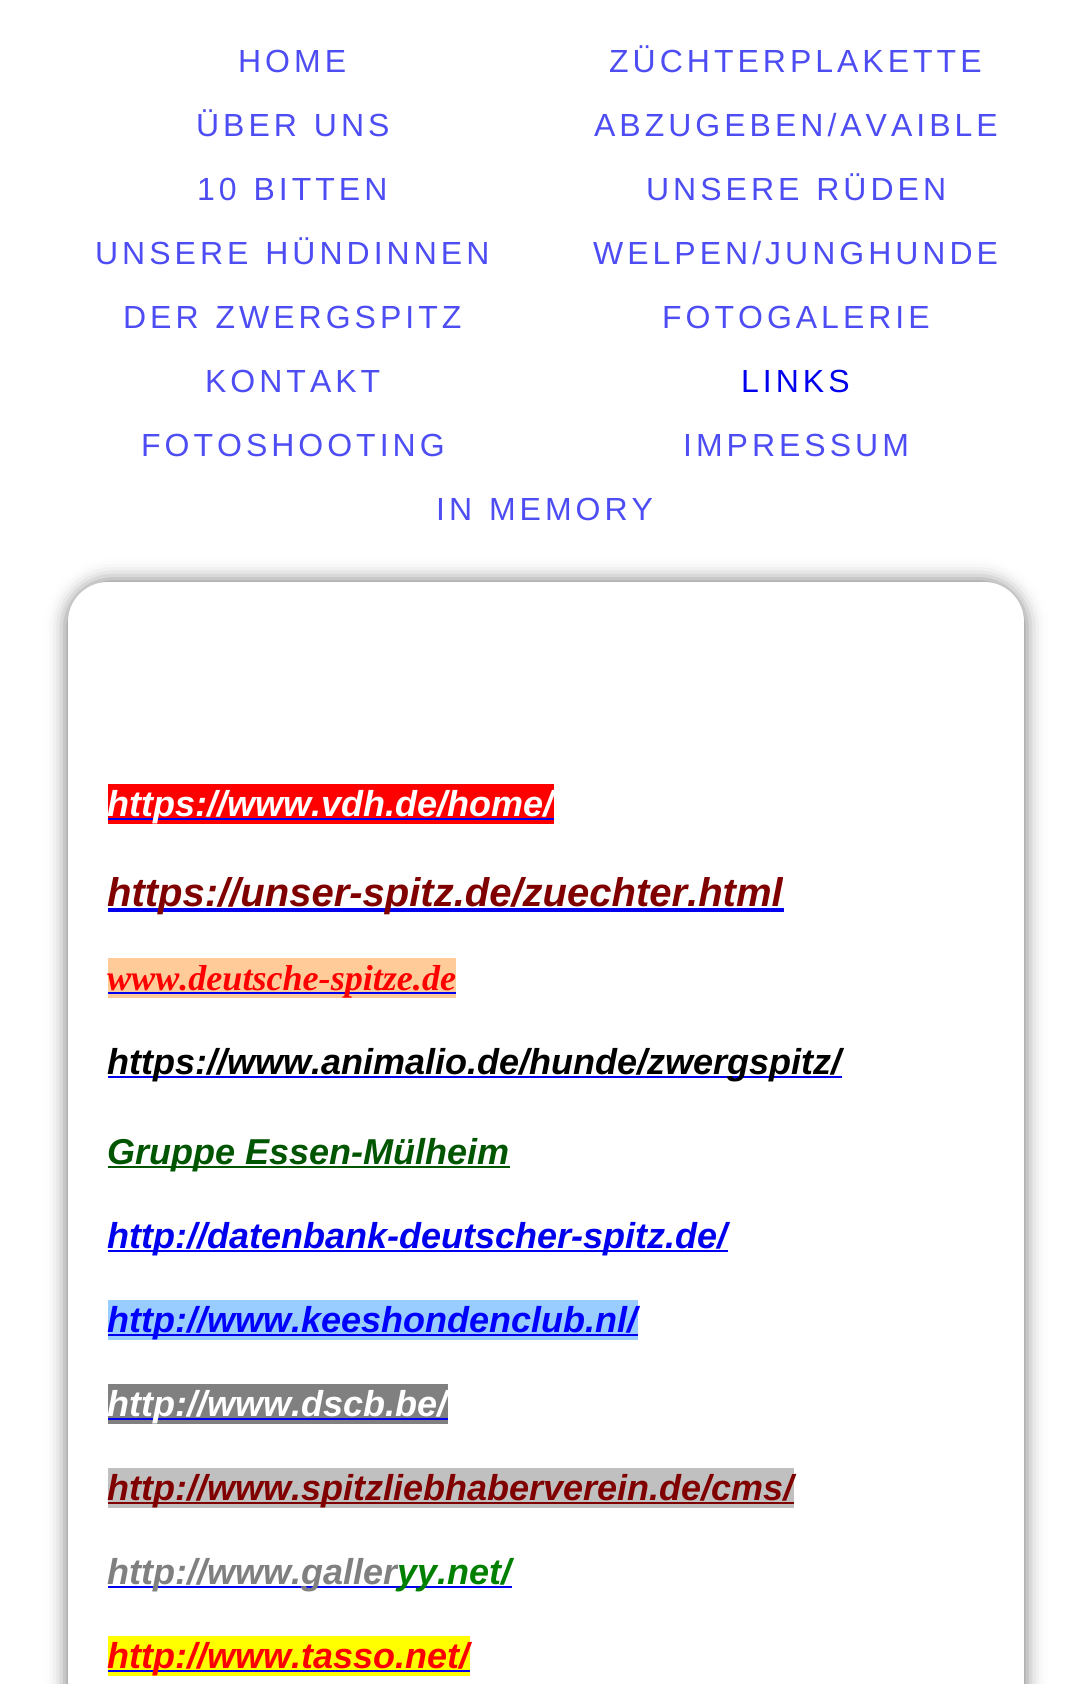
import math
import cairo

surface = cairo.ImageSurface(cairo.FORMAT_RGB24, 1092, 1684)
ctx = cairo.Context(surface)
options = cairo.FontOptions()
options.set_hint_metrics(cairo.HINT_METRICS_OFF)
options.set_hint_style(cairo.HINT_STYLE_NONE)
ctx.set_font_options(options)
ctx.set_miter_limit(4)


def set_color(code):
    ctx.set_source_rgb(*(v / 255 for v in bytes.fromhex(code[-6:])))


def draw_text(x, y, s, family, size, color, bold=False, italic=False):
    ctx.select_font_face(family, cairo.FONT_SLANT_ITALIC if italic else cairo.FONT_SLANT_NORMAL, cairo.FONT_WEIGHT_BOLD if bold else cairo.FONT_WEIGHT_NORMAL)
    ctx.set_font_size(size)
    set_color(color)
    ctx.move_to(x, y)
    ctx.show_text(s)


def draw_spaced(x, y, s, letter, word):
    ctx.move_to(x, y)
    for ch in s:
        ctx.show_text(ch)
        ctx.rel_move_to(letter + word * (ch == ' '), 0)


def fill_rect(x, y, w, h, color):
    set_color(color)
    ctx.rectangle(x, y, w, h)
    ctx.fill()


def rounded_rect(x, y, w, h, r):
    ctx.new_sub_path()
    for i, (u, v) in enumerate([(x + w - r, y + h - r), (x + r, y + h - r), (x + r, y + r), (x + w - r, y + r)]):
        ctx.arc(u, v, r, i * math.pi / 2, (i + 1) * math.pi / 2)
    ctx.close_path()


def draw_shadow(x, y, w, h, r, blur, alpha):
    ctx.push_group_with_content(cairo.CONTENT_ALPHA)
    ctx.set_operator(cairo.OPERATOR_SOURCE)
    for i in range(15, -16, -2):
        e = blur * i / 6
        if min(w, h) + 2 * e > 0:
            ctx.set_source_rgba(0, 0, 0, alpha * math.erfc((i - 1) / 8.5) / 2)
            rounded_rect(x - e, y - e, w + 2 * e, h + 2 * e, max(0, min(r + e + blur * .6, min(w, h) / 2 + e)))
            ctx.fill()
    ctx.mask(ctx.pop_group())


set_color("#ffffff")
ctx.paint()
ctx.select_font_face("Liberation Sans")
ctx.set_font_size(32)
set_color("#4d4df3")
draw_spaced(238, 72, "HOME", 4, 0)
draw_spaced(609, 72, "ZÜCHTERPLAKETTE", 4, 0)
draw_spaced(196, 136, "ÜBER UNS", 4, 0)
draw_spaced(594, 136, "ABZUGEBEN/AVAIBLE", 4, 0)
draw_spaced(197, 200, "10 BITTEN", 4, 0)
draw_spaced(646, 200, "UNSERE RÜDEN", 4, 0)
draw_spaced(95, 264, "UNSERE HÜNDINNEN", 4, 0)
draw_spaced(593, 264, "WELPEN/JUNGHUNDE", 4, 0)
draw_spaced(123, 328, "DER ZWERGSPITZ", 4, 0)
draw_spaced(662, 328, "FOTOGALERIE", 4, 0)
draw_spaced(205, 392, "KONTAKT", 4, 0)
set_color("#0000ee")
draw_spaced(741, 392, "LINKS", 4, 0)
set_color("#4d4df3")
draw_spaced(141, 456, "FOTOSHOOTING", 4, 0)
draw_spaced(683, 456, "IMPRESSUM", 4, 0)
draw_spaced(436, 520, "IN MEMORY", 4, 0)
ctx.save()
ctx.set_fill_rule(cairo.FILL_RULE_EVEN_ODD)
ctx.new_path()
ctx.move_to(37, 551)
ctx.line_to(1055, 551)
ctx.line_to(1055, 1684)
ctx.line_to(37, 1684)
ctx.close_path()
ctx.move_to(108, 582)
ctx.line_to(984, 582)
ctx.curve_to(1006, 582, 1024, 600, 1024, 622)
ctx.line_to(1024, 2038)
ctx.curve_to(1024, 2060, 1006, 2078, 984, 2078)
ctx.line_to(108, 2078)
ctx.curve_to(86, 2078, 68, 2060, 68, 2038)
ctx.line_to(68, 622)
ctx.curve_to(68, 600, 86, 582, 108, 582)
ctx.close_path()
ctx.clip()
set_color("#666666")
draw_shadow(68, 582, 956, 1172, 40, 10, 1)
ctx.restore()
fill_rect(108, 784, 446, 40, "#ff0000")
fill_rect(108, 818, 446, 2, "#0000ee")
draw_text(107, 816, "https://www.vdh.de/home/", "Liberation Sans", 36, "#ffffff", bold=True, italic=True)
fill_rect(108, 908, 676, 4, "#0000ee")
draw_text(107, 906, "https://unser-spitz.de/zuechter.html", "Liberation Sans", 40, "#800000", bold=True, italic=True)
fill_rect(108, 958, 348, 40, "#ffcc99")
fill_rect(108, 992, 348, 2, "#0000ee")
draw_text(107, 990, "www.deutsche-spitze.de", "Liberation Serif", 36.1, "#ff0000", bold=True, italic=True)
fill_rect(108, 1076, 734, 2, "#0000ee")
draw_text(107, 1074, "https://www.animalio.de/hunde/zwergspitz/", "Liberation Sans", 36, "#000000", bold=True, italic=True)
fill_rect(108, 1166, 402, 2, "#005500")
draw_text(107, 1164, "Gruppe Essen-Mülheim", "Liberation Sans", 36, "#005500", bold=True, italic=True)
fill_rect(108, 1250, 620, 2, "#0000ee")
draw_text(107, 1248, "http://datenbank-deutscher-spitz.de/", "Liberation Sans", 36, "#0000ee", bold=True, italic=True)
fill_rect(108, 1300, 530, 40, "#99ccff")
fill_rect(108, 1334, 530, 2, "#0000ee")
draw_text(107, 1332, "http://www.keeshondenclub.nl/", "Liberation Sans", 36, "#0000ff", bold=True, italic=True)
fill_rect(108, 1384, 340, 40, "#808080")
fill_rect(108, 1418, 340, 2, "#0000ee")
draw_text(107, 1416, "http://www.dscb.be/", "Liberation Sans", 36, "#ffffff", bold=True, italic=True)
fill_rect(108, 1468, 686, 40, "#c0c0c0")
fill_rect(108, 1502, 686, 2, "#800000")
draw_text(107, 1500, "http://www.spitzliebhaberverein.de/cms/", "Liberation Sans", 36, "#800000", bold=True, italic=True)
fill_rect(108, 1586, 290, 2, "#0000ee")
draw_text(107, 1584, "http://www.galler", "Liberation Sans", 36, "#808080", bold=True, italic=True)
fill_rect(398, 1564, 1, 5, "#ffffff")
fill_rect(398, 1586, 40, 2, "#0000ee")
draw_text(397, 1584, "yy.net/", "Liberation Sans", 36, "#008000", bold=True, italic=True)
fill_rect(438, 1586, 74, 2, "#0000ee")
fill_rect(108, 1636, 362, 40, "#ffff00")
fill_rect(108, 1670, 362, 2, "#0000ee")
draw_text(107, 1668, "http://www.tasso.net/", "Liberation Sans", 36, "#ff0000", bold=True, italic=True)
surface.write_to_png("output.png")
